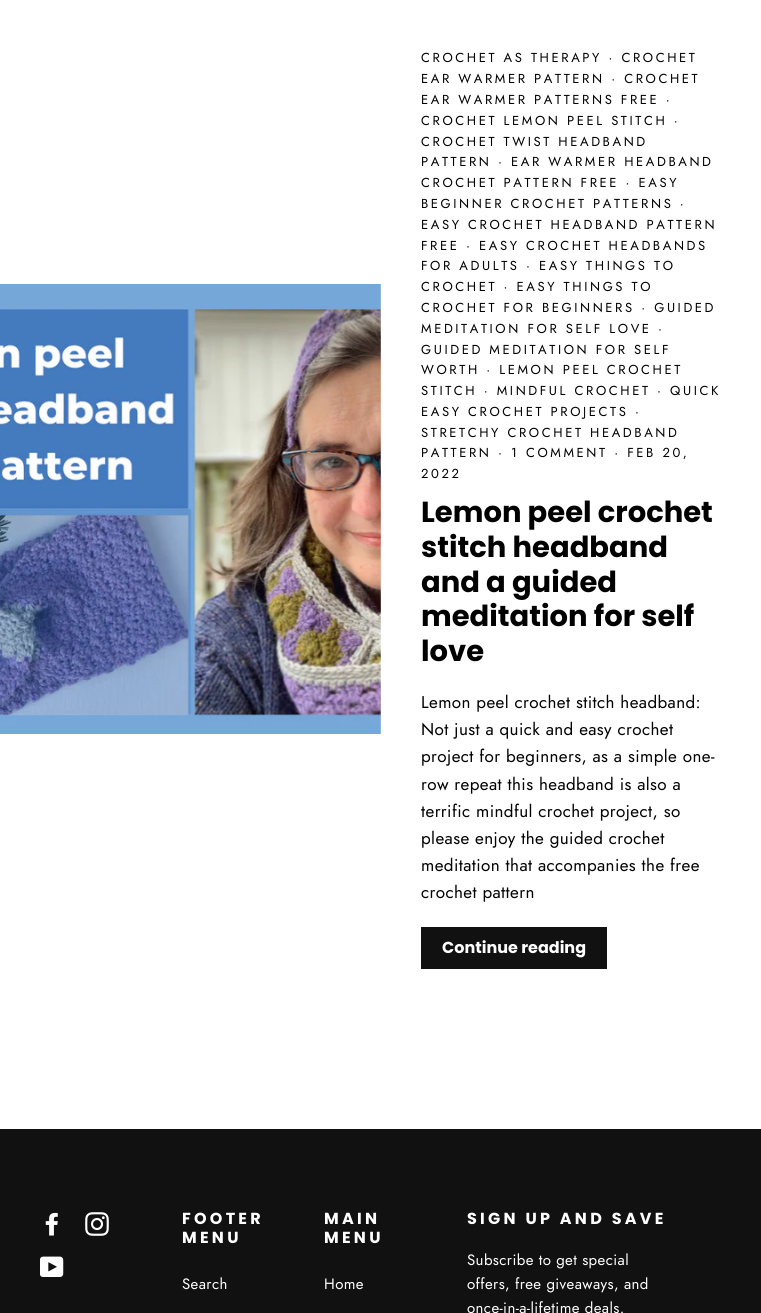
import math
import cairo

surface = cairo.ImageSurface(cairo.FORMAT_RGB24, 761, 1313)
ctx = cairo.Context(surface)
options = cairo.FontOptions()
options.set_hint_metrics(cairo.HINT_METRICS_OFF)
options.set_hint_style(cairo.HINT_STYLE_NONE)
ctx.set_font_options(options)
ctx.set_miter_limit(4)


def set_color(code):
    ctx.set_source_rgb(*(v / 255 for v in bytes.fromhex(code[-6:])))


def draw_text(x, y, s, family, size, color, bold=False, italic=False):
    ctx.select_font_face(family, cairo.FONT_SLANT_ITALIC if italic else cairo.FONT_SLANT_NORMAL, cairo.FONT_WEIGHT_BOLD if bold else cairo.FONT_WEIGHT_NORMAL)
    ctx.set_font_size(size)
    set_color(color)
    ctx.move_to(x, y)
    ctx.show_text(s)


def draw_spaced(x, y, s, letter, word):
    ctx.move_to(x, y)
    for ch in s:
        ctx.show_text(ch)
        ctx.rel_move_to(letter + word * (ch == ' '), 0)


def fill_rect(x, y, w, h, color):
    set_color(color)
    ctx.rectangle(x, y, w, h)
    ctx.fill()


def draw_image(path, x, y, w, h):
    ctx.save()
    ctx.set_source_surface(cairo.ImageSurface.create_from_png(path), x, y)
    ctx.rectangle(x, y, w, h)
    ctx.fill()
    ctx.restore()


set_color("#ffffff")
ctx.paint()
draw_image("assets/img1.png", 0, 284, 381, 450)
ctx.select_font_face("Jost")
ctx.set_font_size(13)
set_color("#000000")
draw_spaced(421, 62, "CROCHET AS THERAPY · CROCHET", 2.6, 0)
draw_spaced(421, 83, "EAR WARMER PATTERN · CROCHET", 2.6, 0)
draw_spaced(421, 104, "EAR WARMER PATTERNS FREE ·", 2.6, 0)
draw_spaced(421, 125, "CROCHET LEMON PEEL STITCH ·", 2.6, 0)
draw_spaced(421, 146, "CROCHET TWIST HEADBAND", 2.6, 0)
draw_spaced(421, 166, "PATTERN · EAR WARMER HEADBAND", 2.6, 0)
draw_spaced(421, 187, "CROCHET PATTERN FREE · EASY", 2.6, 0)
draw_spaced(421, 208, "BEGINNER CROCHET PATTERNS ·", 2.6, 0)
draw_spaced(421, 229, "EASY CROCHET HEADBAND PATTERN", 2.6, 0)
draw_spaced(421, 250, "FREE · EASY CROCHET HEADBANDS", 2.6, 0)
draw_spaced(421, 270, "FOR ADULTS · EASY THINGS TO", 2.6, 0)
draw_spaced(421, 291, "CROCHET · EASY THINGS TO", 2.6, 0)
draw_spaced(421, 312, "CROCHET FOR BEGINNERS · GUIDED", 2.6, 0)
draw_spaced(421, 333, "MEDITATION FOR SELF LOVE ·", 2.6, 0)
draw_spaced(421, 354, "GUIDED MEDITATION FOR SELF", 2.6, 0)
draw_spaced(421, 374, "WORTH · LEMON PEEL CROCHET", 2.6, 0)
draw_spaced(421, 395, "STITCH · MINDFUL CROCHET · QUICK", 2.6, 0)
draw_spaced(421, 416, "EASY CROCHET PROJECTS ·", 2.6, 0)
draw_spaced(421, 437, "STRETCHY CROCHET HEADBAND", 2.6, 0)
draw_spaced(421, 457, "PATTERN · 1 COMMENT · FEB 20,", 2.6, 0)
draw_spaced(421, 478, "2022", 2.6, 0)
draw_text(421, 522, "Lemon peel crochet", "Poppins", 29, "#000000", bold=True)
draw_text(421, 557, "stitch headband", "Poppins", 29, "#000000", bold=True)
draw_text(421, 592, "and a guided", "Poppins", 29, "#000000", bold=True)
draw_text(421, 626, "meditation for self", "Poppins", 29, "#000000", bold=True)
draw_text(421, 661, "love", "Poppins", 29, "#000000", bold=True)
ctx.select_font_face("Jost")
ctx.set_font_size(17)
draw_spaced(421, 708, "Lemon peel crochet stitch headband:", 0.4, 0)
draw_spaced(421, 735, "Not just a quick and easy crochet", 0.4, 0)
draw_spaced(421, 762, "project for beginners, as a simple one-", 0.4, 0)
draw_spaced(421, 790, "row repeat this headband is also a", 0.4, 0)
draw_spaced(421, 817, "terrific mindful crochet project, so", 0.4, 0)
draw_spaced(421, 844, "please enjoy the guided crochet", 0.4, 0)
draw_spaced(421, 871, "meditation that accompanies the free", 0.4, 0)
draw_spaced(421, 898, "crochet pattern", 0.4, 0)
fill_rect(421, 927, 186, 42, "#111111")
draw_text(442, 953, "Continue reading", "Poppins", 16, "#ffffff", bold=True)
fill_rect(0, 1129, 761, 184, "#111111")
draw_image("assets/img2.png", 45, 1212, 13, 24)
draw_image("assets/img3.png", 85, 1212, 24, 24)
draw_image("assets/img4.png", 40, 1256, 24, 21)
set_color("#ffffff")
draw_spaced(182, 1224, "FOOTER", 3.25, 0)
draw_spaced(182, 1243, "MENU", 3.25, 0)
ctx.select_font_face("Jost")
ctx.set_font_size(15)
draw_spaced(182, 1289, "Search", 0.4, 0)
ctx.select_font_face("Poppins", cairo.FONT_SLANT_NORMAL, cairo.FONT_WEIGHT_BOLD)
ctx.set_font_size(16)
draw_spaced(324, 1224, "MAIN", 3.25, 0)
draw_spaced(324, 1243, "MENU", 3.25, 0)
ctx.select_font_face("Jost")
ctx.set_font_size(15)
draw_spaced(324, 1289, "Home", 0.4, 0)
ctx.select_font_face("Poppins", cairo.FONT_SLANT_NORMAL, cairo.FONT_WEIGHT_BOLD)
ctx.set_font_size(16)
draw_spaced(467, 1224, "SIGN UP AND SAVE", 3.25, 0)
ctx.select_font_face("Jost")
ctx.set_font_size(15)
draw_spaced(467, 1265, "Subscribe to get special", 0.4, 0)
draw_spaced(467, 1289, "offers, free giveaways, and", 0.4, 0)
draw_spaced(467, 1313, "once-in-a-lifetime deals.", 0.4, 0)
surface.write_to_png("output.png")
